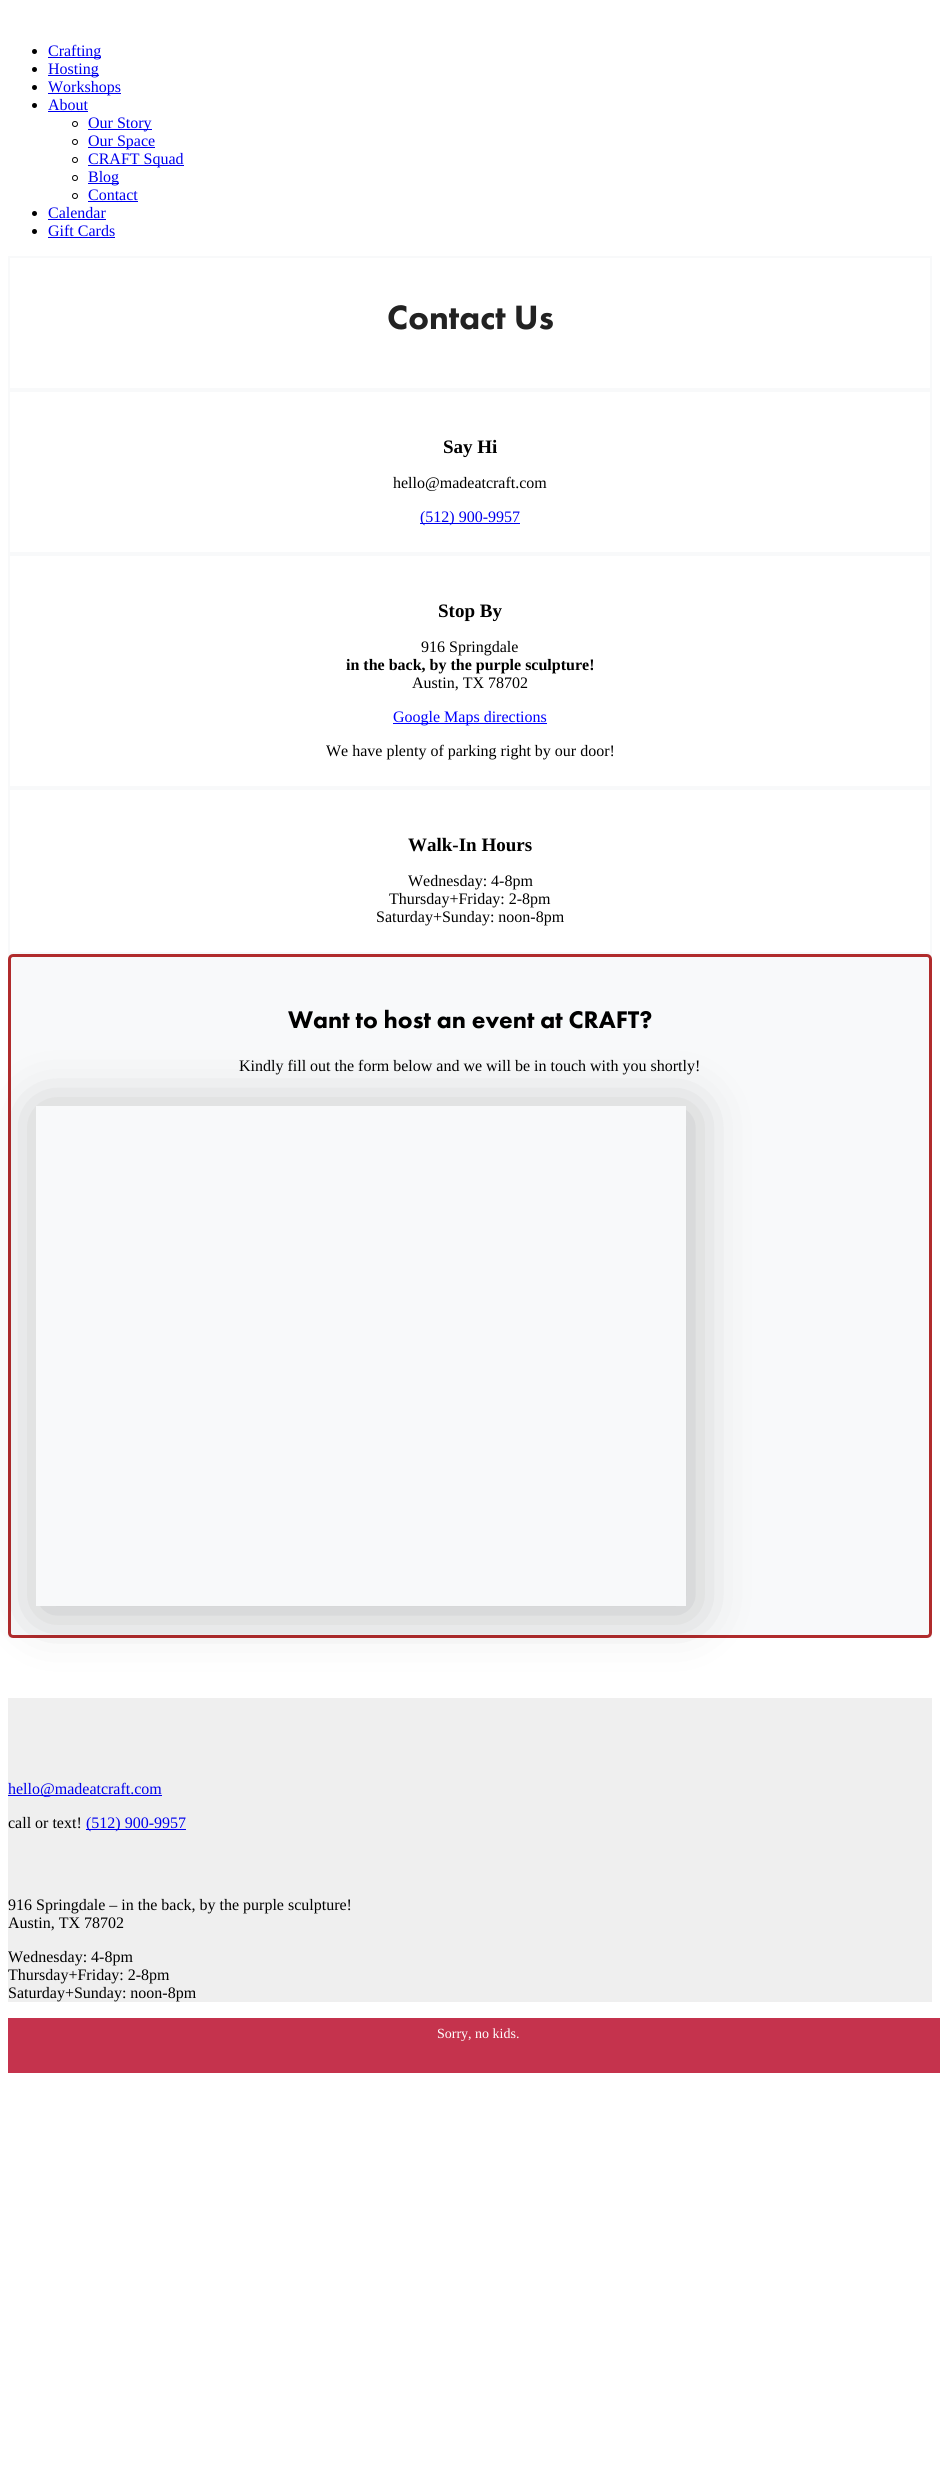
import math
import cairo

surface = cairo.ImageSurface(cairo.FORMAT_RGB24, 940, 2481)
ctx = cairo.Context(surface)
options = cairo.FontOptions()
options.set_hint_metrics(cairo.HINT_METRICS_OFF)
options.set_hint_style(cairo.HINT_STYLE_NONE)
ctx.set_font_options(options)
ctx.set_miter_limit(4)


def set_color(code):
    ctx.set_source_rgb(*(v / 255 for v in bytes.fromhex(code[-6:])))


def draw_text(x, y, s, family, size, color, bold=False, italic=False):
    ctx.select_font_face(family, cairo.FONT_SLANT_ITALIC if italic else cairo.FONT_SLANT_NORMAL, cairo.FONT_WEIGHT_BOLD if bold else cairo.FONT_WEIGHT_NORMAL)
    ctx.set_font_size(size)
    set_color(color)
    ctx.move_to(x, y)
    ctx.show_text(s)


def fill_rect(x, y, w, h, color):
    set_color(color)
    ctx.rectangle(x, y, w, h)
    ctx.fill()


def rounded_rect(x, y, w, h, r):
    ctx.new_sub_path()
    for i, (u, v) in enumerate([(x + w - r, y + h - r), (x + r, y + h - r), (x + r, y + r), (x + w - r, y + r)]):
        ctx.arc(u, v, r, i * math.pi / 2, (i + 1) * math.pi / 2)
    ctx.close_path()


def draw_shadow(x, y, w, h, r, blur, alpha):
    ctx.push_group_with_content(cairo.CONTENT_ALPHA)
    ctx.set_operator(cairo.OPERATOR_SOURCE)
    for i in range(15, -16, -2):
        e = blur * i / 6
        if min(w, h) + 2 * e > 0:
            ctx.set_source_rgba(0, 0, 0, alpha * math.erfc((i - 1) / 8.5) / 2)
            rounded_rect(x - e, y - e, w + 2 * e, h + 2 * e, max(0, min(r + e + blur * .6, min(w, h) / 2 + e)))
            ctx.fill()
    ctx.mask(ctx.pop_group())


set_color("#ffffff")
ctx.paint()
set_color("#000000")
ctx.arc(34.5, 51.5, 2.5, 0, 2 * math.pi)
ctx.fill()
fill_rect(48, 57, 53, 1, "#0000ee")
draw_text(48, 56, "Crafting", "Liberation Serif", 16, "#0000ee")
set_color("#000000")
ctx.new_path()
ctx.arc(34.5, 69.5, 2.5, 0, 2 * math.pi)
ctx.fill()
fill_rect(48, 75, 51, 1, "#0000ee")
draw_text(48, 74, "Hosting", "Liberation Serif", 16, "#0000ee")
set_color("#000000")
ctx.new_path()
ctx.arc(34.5, 87.5, 2.5, 0, 2 * math.pi)
ctx.fill()
fill_rect(48, 93, 73, 1, "#0000ee")
draw_text(48, 92, "Workshops", "Liberation Serif", 16, "#0000ee")
set_color("#000000")
ctx.new_path()
ctx.arc(34.5, 105.5, 2.5, 0, 2 * math.pi)
ctx.fill()
draw_text(48, 110, "About", "Liberation Serif", 16, "#0000ee")
fill_rect(48, 111, 40, 1, "#0000ee")
ctx.new_path()
ctx.arc(75, 124, 2.5, 0, 2 * math.pi)
set_color("#000000")
ctx.set_line_width(1)
ctx.stroke()
fill_rect(88, 129, 64, 1, "#0000ee")
draw_text(88, 128, "Our Story", "Liberation Serif", 16, "#0000ee")
ctx.new_path()
ctx.arc(75, 142, 2.5, 0, 2 * math.pi)
set_color("#000000")
ctx.stroke()
fill_rect(88, 147, 67, 1, "#0000ee")
draw_text(88, 146, "Our Space", "Liberation Serif", 16, "#0000ee")
ctx.new_path()
ctx.arc(75, 160, 2.5, 0, 2 * math.pi)
set_color("#000000")
ctx.stroke()
fill_rect(88, 165, 96, 1, "#0000ee")
draw_text(88, 164, "CRAFT Squad", "Liberation Serif", 16, "#0000ee")
ctx.new_path()
ctx.arc(75, 178, 2.5, 0, 2 * math.pi)
set_color("#000000")
ctx.stroke()
fill_rect(88, 183, 31, 1, "#0000ee")
draw_text(88, 182, "Blog", "Liberation Serif", 16, "#0000ee")
ctx.new_path()
ctx.arc(75, 196, 2.5, 0, 2 * math.pi)
set_color("#000000")
ctx.stroke()
draw_text(88, 200, "Contact", "Liberation Serif", 16, "#0000ee")
fill_rect(88, 201, 50, 1, "#0000ee")
set_color("#000000")
ctx.new_path()
ctx.arc(34.5, 213.5, 2.5, 0, 2 * math.pi)
ctx.fill()
draw_text(48, 218, "Calendar", "Liberation Serif", 16, "#0000ee")
fill_rect(48, 219, 58, 1, "#0000ee")
set_color("#000000")
ctx.new_path()
ctx.arc(34.5, 231.5, 2.5, 0, 2 * math.pi)
ctx.fill()
draw_text(48, 236, "Gift Cards", "Liberation Serif", 16, "#0000ee")
fill_rect(48, 237, 67, 1, "#0000ee")
fill_rect(8, 954, 924, 684, "#f8f9fa")
ctx.rectangle(9, 257, 922, 132)
ctx.set_line_width(2)
ctx.stroke()
draw_text(387, 329, "Contact Us", "Futura PT Black", 35, "#222222")
ctx.rectangle(9, 391, 922, 162)
set_color("#f8f9fa")
ctx.stroke()
draw_text(443, 453, "Say Hi", "Liberation Serif", 19, "#000000", bold=True)
draw_text(393, 488, "hello@madeatcraft.com", "Liberation Serif", 16, "#000000")
fill_rect(420, 523, 100, 1, "#0000ee")
draw_text(420, 522, "(512) 900-9957", "Liberation Serif", 16, "#0000ee")
ctx.rectangle(9, 555, 922, 232)
set_color("#f8f9fa")
ctx.stroke()
draw_text(438, 617, "Stop By", "Liberation Serif", 19, "#000000", bold=True)
draw_text(421, 652, "916 Springdale", "Liberation Serif", 16, "#000000")
draw_text(346, 670, "in the back, by the purple sculpture!", "Liberation Serif", 16, "#000000", bold=True)
draw_text(412, 688, "Austin, TX 78702", "Liberation Serif", 16, "#000000")
fill_rect(393, 723, 154, 1, "#0000ff")
draw_text(393, 722, "Google Maps directions", "Liberation Serif", 16, "#0000ff")
draw_text(326, 756, "We have plenty of parking right by our door!", "Liberation Serif", 16, "#000000")
ctx.rectangle(9, 789, 922, 164)
set_color("#f8f9fa")
ctx.stroke()
draw_text(408, 851, "Walk-In Hours", "Liberation Serif", 19, "#000000", bold=True)
draw_text(408, 886, "Wednesday: 4-8pm", "Liberation Serif", 16, "#000000")
draw_text(389, 904, "Thursday+Friday: 2-8pm", "Liberation Serif", 16, "#000000")
draw_text(376, 922, "Saturday+Sunday: noon-8pm", "Liberation Serif", 16, "#000000")
rounded_rect(9.5, 955.5, 921, 681, 3.5)
set_color("#b02b2c")
ctx.set_line_width(3)
ctx.stroke()
draw_text(288, 1028, "Want to host an event at CRAFT?", "Futura PT Black", 25, "#000000")
ctx.save()
ctx.set_fill_rule(cairo.FILL_RULE_EVEN_ODD)
ctx.new_path()
ctx.move_to(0, 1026)
ctx.line_to(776, 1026)
ctx.line_to(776, 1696)
ctx.line_to(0, 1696)
ctx.close_path()
ctx.move_to(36, 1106)
ctx.line_to(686, 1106)
ctx.line_to(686, 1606)
ctx.line_to(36, 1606)
ctx.close_path()
ctx.clip()
set_color("#000000")
draw_shadow(41, 1111, 650, 500, 0, 28, 0.25)
ctx.restore()
draw_text(239, 1071, "Kindly fill out the form below and we will be in touch with you shortly!", "Liberation Serif", 16, "#000000")
fill_rect(8, 1698, 924, 304, "#efefef")
fill_rect(8, 1795, 154, 1, "#0000ee")
draw_text(8, 1794, "hello@madeatcraft.com", "Liberation Serif", 16, "#0000ee")
draw_text(8, 1828, "call or text!", "Liberation Serif", 16, "#000000")
fill_rect(86, 1829, 100, 1, "#0000ee")
draw_text(86, 1828, "(512) 900-9957", "Liberation Serif", 16, "#0000ee")
draw_text(8, 1910, "916 Springdale – in the back, by the purple sculpture!", "Liberation Serif", 16, "#000000")
draw_text(8, 1928, "Austin, TX 78702", "Liberation Serif", 16, "#000000")
draw_text(8, 1962, "Wednesday: 4-8pm", "Liberation Serif", 16, "#000000")
draw_text(8, 1980, "Thursday+Friday: 2-8pm", "Liberation Serif", 16, "#000000")
draw_text(8, 1998, "Saturday+Sunday: noon-8pm", "Liberation Serif", 16, "#000000")
fill_rect(8, 2018, 932, 55, "#c5334d")
draw_text(437, 2038, "Sorry, no kids.", "Liberation Serif", 14, "#ffffff")
surface.write_to_png("output.png")
